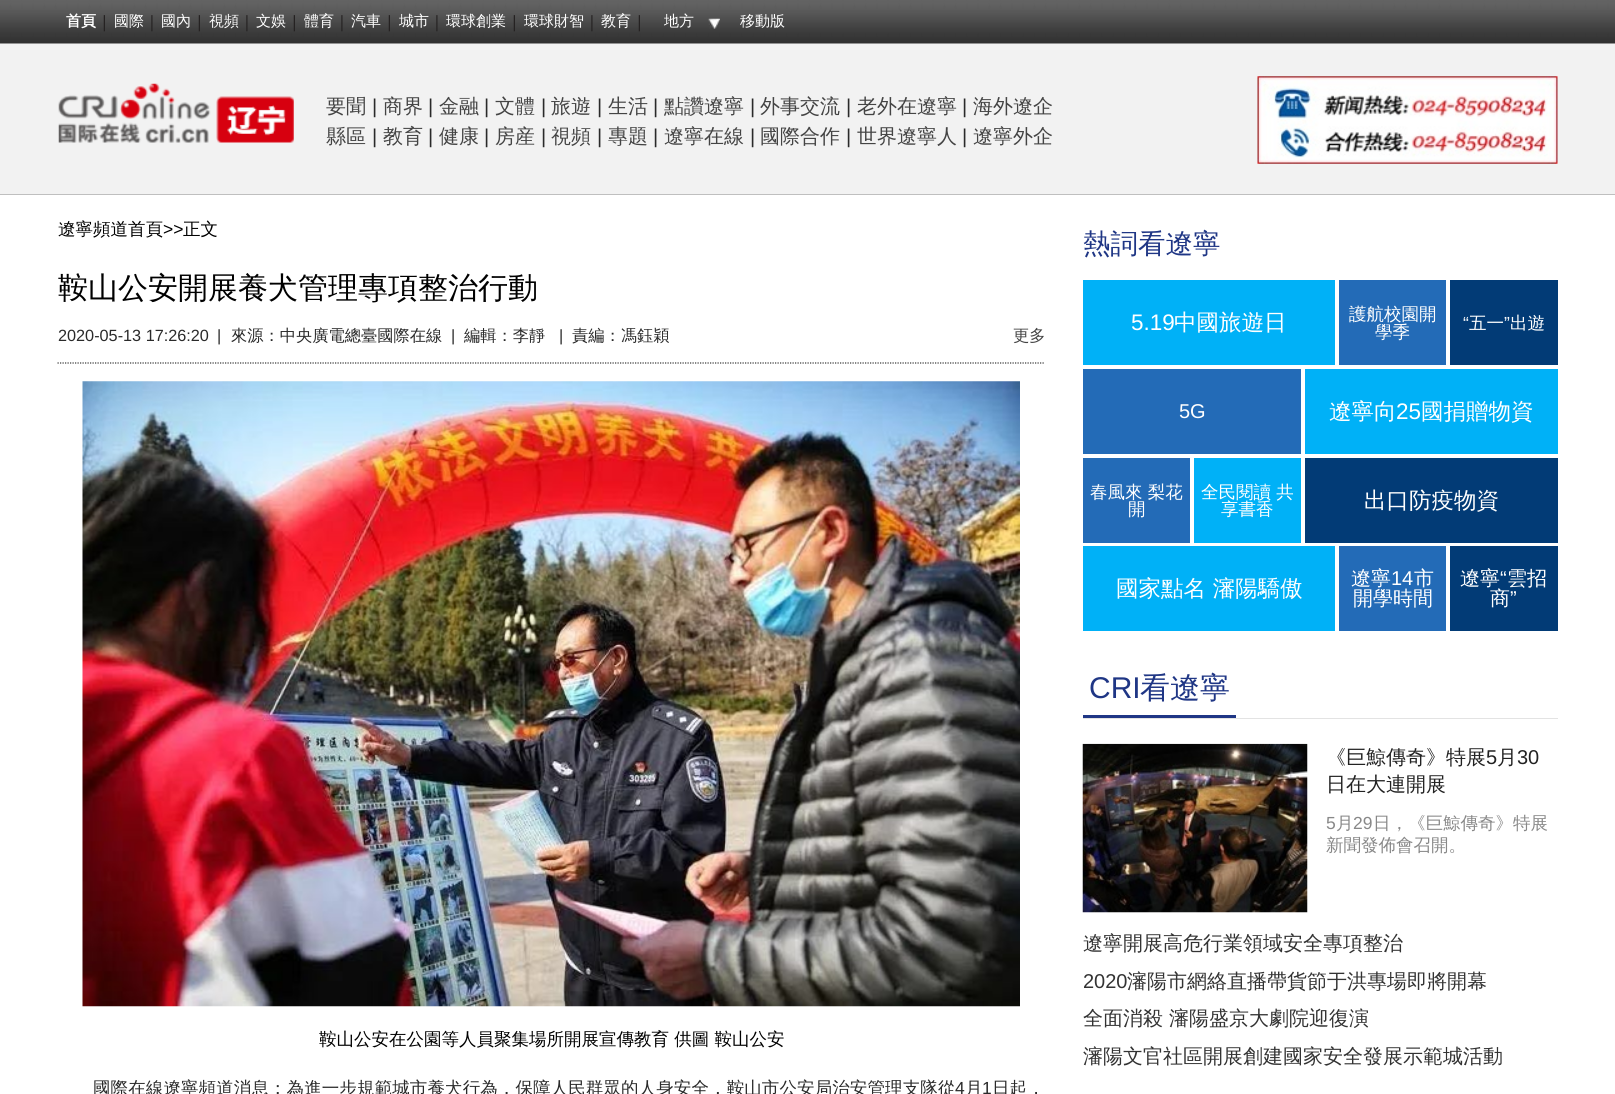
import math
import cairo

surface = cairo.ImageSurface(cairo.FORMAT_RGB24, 1615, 1094)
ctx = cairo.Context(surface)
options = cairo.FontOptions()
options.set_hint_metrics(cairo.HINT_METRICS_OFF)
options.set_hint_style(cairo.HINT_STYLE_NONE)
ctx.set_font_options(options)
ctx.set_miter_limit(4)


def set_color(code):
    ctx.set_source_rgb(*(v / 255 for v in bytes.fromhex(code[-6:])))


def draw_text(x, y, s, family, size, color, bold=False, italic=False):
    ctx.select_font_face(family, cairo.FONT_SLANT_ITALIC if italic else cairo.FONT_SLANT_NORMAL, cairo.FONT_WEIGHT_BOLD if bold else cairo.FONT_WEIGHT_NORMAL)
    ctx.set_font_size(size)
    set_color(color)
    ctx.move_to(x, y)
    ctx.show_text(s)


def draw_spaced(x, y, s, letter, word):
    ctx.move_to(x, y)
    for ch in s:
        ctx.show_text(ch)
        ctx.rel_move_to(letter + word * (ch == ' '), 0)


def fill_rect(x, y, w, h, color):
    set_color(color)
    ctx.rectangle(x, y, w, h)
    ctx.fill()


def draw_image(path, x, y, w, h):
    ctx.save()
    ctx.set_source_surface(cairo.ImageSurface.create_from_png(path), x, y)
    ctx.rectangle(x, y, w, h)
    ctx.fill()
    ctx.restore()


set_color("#ffffff")
ctx.paint()
draw_image("assets/img1.png", 0, 0, 1615, 44)
draw_image("assets/img2.png", 103, 15, 2, 17)
draw_text(66, 26, "首頁", "WenQuanYi Zen Hei", 15, "#ffffff", bold=True)
draw_image("assets/img3.png", 151, 15, 2, 17)
draw_text(114, 26, "國際", "WenQuanYi Zen Hei Medium", 15, "#ffffff")
draw_image("assets/img2.png", 198, 15, 2, 17)
draw_text(161, 26, "國內", "WenQuanYi Zen Hei Medium", 15, "#ffffff")
draw_image("assets/img3.png", 246, 15, 2, 17)
draw_text(209, 26, "視頻", "WenQuanYi Zen Hei Medium", 15, "#ffffff")
draw_image("assets/img2.png", 293, 15, 2, 17)
draw_text(256, 26, "文娛", "WenQuanYi Zen Hei Medium", 15, "#ffffff")
draw_image("assets/img3.png", 341, 15, 2, 17)
draw_text(304, 26, "體育", "WenQuanYi Zen Hei Medium", 15, "#ffffff")
draw_image("assets/img2.png", 388, 15, 2, 17)
draw_text(351, 26, "汽車", "WenQuanYi Zen Hei Medium", 15, "#ffffff")
draw_image("assets/img3.png", 436, 15, 2, 17)
draw_text(399, 26, "城市", "WenQuanYi Zen Hei Medium", 15, "#ffffff")
draw_image("assets/img2.png", 513, 15, 2, 17)
draw_text(446, 26, "環球創業", "WenQuanYi Zen Hei Medium", 15, "#ffffff")
draw_image("assets/img3.png", 591, 15, 2, 17)
draw_text(524, 26, "環球財智", "WenQuanYi Zen Hei Medium", 15, "#ffffff")
draw_image("assets/img2.png", 638, 15, 2, 17)
draw_text(601, 26, "教育", "WenQuanYi Zen Hei Medium", 15, "#ffffff")
draw_image("assets/img4.png", 708, 18, 12, 11)
draw_text(664, 26, "地方", "WenQuanYi Zen Hei Medium", 15, "#ffffff")
draw_text(740, 26, "移動版", "WenQuanYi Zen Hei Medium", 15, "#ffffff")
fill_rect(0, 44, 1615, 150, "#f2f2f2")
fill_rect(0, 194, 1615, 1, "#bfbfbf")
draw_image("assets/img5.png", 58, 83, 236, 60)
draw_text(326, 113, "要聞", "WenQuanYi Zen Hei Medium", 20, "#444444")
draw_text(372, 113, "|", "Liberation Sans", 20, "#2a2a2a")
draw_text(383, 113, "商界", "WenQuanYi Zen Hei Medium", 20, "#444444")
draw_text(428, 113, "|", "Liberation Sans", 20, "#2a2a2a")
draw_text(439, 113, "金融", "WenQuanYi Zen Hei Medium", 20, "#444444")
draw_text(484, 113, "|", "Liberation Sans", 20, "#2a2a2a")
draw_text(495, 113, "文體", "WenQuanYi Zen Hei Medium", 20, "#444444")
draw_text(541, 113, "|", "Liberation Sans", 20, "#2a2a2a")
draw_text(551, 113, "旅遊", "WenQuanYi Zen Hei Medium", 20, "#444444")
draw_text(597, 113, "|", "Liberation Sans", 20, "#2a2a2a")
draw_text(608, 113, "生活", "WenQuanYi Zen Hei Medium", 20, "#444444")
draw_text(653, 113, "|", "Liberation Sans", 20, "#2a2a2a")
draw_text(664, 113, "點讚遼寧", "WenQuanYi Zen Hei Medium", 20, "#444444")
draw_text(750, 113, "|", "Liberation Sans", 20, "#2a2a2a")
draw_text(760, 113, "外事交流", "WenQuanYi Zen Hei Medium", 20, "#444444")
draw_text(846, 113, "|", "Liberation Sans", 20, "#2a2a2a")
draw_text(857, 113, "老外在遼寧", "WenQuanYi Zen Hei Medium", 20, "#444444")
draw_text(962, 113, "|", "Liberation Sans", 20, "#2a2a2a")
draw_text(973, 113, "海外遼企", "WenQuanYi Zen Hei Medium", 20, "#444444")
draw_text(326, 143, "縣區", "WenQuanYi Zen Hei Medium", 20, "#444444")
draw_text(372, 143, "|", "Liberation Sans", 20, "#2a2a2a")
draw_text(383, 143, "教育", "WenQuanYi Zen Hei Medium", 20, "#444444")
draw_text(428, 143, "|", "Liberation Sans", 20, "#2a2a2a")
draw_text(439, 143, "健康", "WenQuanYi Zen Hei Medium", 20, "#444444")
draw_text(484, 143, "|", "Liberation Sans", 20, "#2a2a2a")
draw_text(495, 143, "房産", "WenQuanYi Zen Hei Medium", 20, "#444444")
draw_text(541, 143, "|", "Liberation Sans", 20, "#2a2a2a")
draw_text(551, 143, "視頻", "WenQuanYi Zen Hei Medium", 20, "#444444")
draw_text(597, 143, "|", "Liberation Sans", 20, "#2a2a2a")
draw_text(608, 143, "專題", "WenQuanYi Zen Hei Medium", 20, "#444444")
draw_text(653, 143, "|", "Liberation Sans", 20, "#2a2a2a")
draw_text(664, 143, "遼寧在線", "WenQuanYi Zen Hei Medium", 20, "#444444")
draw_text(750, 143, "|", "Liberation Sans", 20, "#2a2a2a")
draw_text(760, 143, "國際合作", "WenQuanYi Zen Hei Medium", 20, "#444444")
draw_text(846, 143, "|", "Liberation Sans", 20, "#2a2a2a")
draw_text(857, 143, "世界遼寧人", "WenQuanYi Zen Hei Medium", 20, "#444444")
draw_text(962, 143, "|", "Liberation Sans", 20, "#2a2a2a")
draw_text(973, 143, "遼寧外企", "WenQuanYi Zen Hei Medium", 20, "#444444")
draw_image("assets/img6.png", 1257, 76, 301, 88)
draw_text(58, 235, "遼寧頻道首頁", "WenQuanYi Zen Hei Medium", 17.5, "#000000")
draw_text(163, 235, ">>", "Liberation Sans", 17.5, "#000000")
draw_text(183, 235, "正文", "WenQuanYi Zen Hei Medium", 17.5, "#000000")
draw_text(58, 298, "鞍山公安開展養犬管理專項整治行動", "WenQuanYi Zen Hei Medium", 30, "#000000")
ctx.new_path()
ctx.move_to(57.5, 363)
ctx.line_to(1045, 363)
set_color("#363636")
ctx.set_line_width(1.2)
ctx.set_dash([1.25, 1.25])
ctx.stroke()
draw_text(58, 341, "2020-05-13 17:26:20", "Liberation Sans", 16.25, "#2a2a2a")
draw_text(217, 341, "|", "Liberation Sans", 16.25, "#2a2a2a")
draw_text(231, 341, "來源：中央廣電總臺國際在線", "WenQuanYi Zen Hei Medium", 16.25, "#2a2a2a")
draw_text(451, 341, "|", "Liberation Sans", 16.25, "#2a2a2a")
draw_text(464, 341, "編輯：李靜", "WenQuanYi Zen Hei Medium", 16.25, "#2a2a2a")
draw_text(559, 341, "|", "Liberation Sans", 16.25, "#2a2a2a")
draw_text(572, 341, "責編：馮鈺穎", "WenQuanYi Zen Hei Medium", 16.25, "#2a2a2a")
draw_text(1013, 341, "更多", "WenQuanYi Zen Hei Medium", 16.25, "#444444")
draw_image("assets/img7.png", 82, 381, 938, 626)
draw_text(319, 1045, "鞍山公安在公園等人員聚集場所開展宣傳教育 供圖 鞍山公安", "WenQuanYi Zen Hei Medium", 17.5, "#000000")
set_color("#2a2a2a")
draw_spaced(93, 1094, "國際在線遼寧頻道消息：為進一步規範城市養犬行為，保障人民群眾的人身安全，鞍山市公安局治安管理支隊從", 0.1, 0)
ctx.select_font_face("Liberation Sans")
draw_spaced(955, 1094, "4", 0.1, 0)
ctx.select_font_face("WenQuanYi Zen Hei Medium")
draw_spaced(965, 1094, "月", 0.1, 0)
ctx.select_font_face("Liberation Sans")
draw_spaced(982, 1094, "1", 0.1, 0)
ctx.select_font_face("WenQuanYi Zen Hei Medium")
draw_spaced(992, 1094, "日起，", 0.1, 0)
draw_text(1083, 253, "熱詞看遼寧", "WenQuanYi Zen Hei Medium", 27.5, "#1f3685")
fill_rect(1083, 280, 252, 85, "#00b1f7")
draw_text(1131, 330, "5.19", "Liberation Sans", 22.5, "#ffffff")
draw_text(1174, 330, "中國旅遊日", "WenQuanYi Zen Hei Medium", 22.5, "#ffffff")
fill_rect(1339, 280, 107, 85, "#236bb7")
draw_text(1349, 320, "護航校園開", "WenQuanYi Zen Hei Medium", 17.5, "#ffffff")
draw_text(1375, 338, "學季", "WenQuanYi Zen Hei Medium", 17.5, "#ffffff")
fill_rect(1450, 280, 108, 85, "#023b76")
draw_text(1463, 329, "“", "Liberation Sans", 17.5, "#ffffff")
draw_text(1469, 329, "五一", "WenQuanYi Zen Hei Medium", 17.5, "#ffffff")
draw_text(1504, 329, "”", "Liberation Sans", 17.5, "#ffffff")
draw_text(1510, 329, "出遊", "WenQuanYi Zen Hei Medium", 17.5, "#ffffff")
fill_rect(1083, 369, 218, 85, "#236bb7")
draw_text(1179, 418, "5G", "Liberation Sans", 20, "#ffffff")
fill_rect(1305, 369, 253, 85, "#00b1f7")
draw_text(1329, 419, "遼寧向", "WenQuanYi Zen Hei Medium", 22.5, "#ffffff")
draw_text(1396, 419, "25", "Liberation Sans", 22.5, "#ffffff")
draw_text(1421, 419, "國捐贈物資", "WenQuanYi Zen Hei Medium", 22.5, "#ffffff")
fill_rect(1083, 458, 107, 85, "#236bb7")
draw_text(1090, 498, "春風來 梨花", "WenQuanYi Zen Hei Medium", 17.5, "#ffffff")
draw_text(1128, 515, "開", "WenQuanYi Zen Hei Medium", 17.5, "#ffffff")
fill_rect(1194, 458, 107, 85, "#00b1f7")
draw_text(1201, 498, "全民閱讀 共", "WenQuanYi Zen Hei Medium", 17.5, "#ffffff")
draw_text(1221, 515, "享書香", "WenQuanYi Zen Hei Medium", 17.5, "#ffffff")
fill_rect(1305, 458, 253, 85, "#023b76")
draw_text(1364, 508, "出口防疫物資", "WenQuanYi Zen Hei Medium", 22.5, "#ffffff")
fill_rect(1083, 546, 252, 85, "#00b1f7")
draw_text(1116, 596, "國家點名 瀋陽驕傲", "WenQuanYi Zen Hei Medium", 22.5, "#ffffff")
fill_rect(1339, 546, 107, 85, "#236bb7")
draw_text(1351, 585, "遼寧", "WenQuanYi Zen Hei Medium", 20, "#ffffff")
draw_text(1391, 585, "14", "Liberation Sans", 20, "#ffffff")
draw_text(1414, 585, "市", "WenQuanYi Zen Hei Medium", 20, "#ffffff")
draw_text(1353, 605, "開學時間", "WenQuanYi Zen Hei Medium", 20, "#ffffff")
fill_rect(1450, 546, 108, 85, "#023b76")
draw_text(1460, 585, "遼寧", "WenQuanYi Zen Hei Medium", 20, "#ffffff")
draw_text(1500, 585, "“", "Liberation Sans", 20, "#ffffff")
draw_text(1507, 585, "雲招", "WenQuanYi Zen Hei Medium", 20, "#ffffff")
draw_text(1490, 605, "商", "WenQuanYi Zen Hei Medium", 20, "#ffffff")
draw_text(1510, 605, "”", "Liberation Sans", 20, "#ffffff")
fill_rect(1083, 718, 475, 1, "#e3e3e3")
fill_rect(1083, 715, 153, 3, "#1f3685")
draw_text(1089, 698, "CRI", "Liberation Sans", 30, "#1f3685")
draw_text(1140, 698, "看遼寧", "WenQuanYi Zen Hei Medium", 30, "#1f3685")
draw_image("assets/img8.png", 1082, 743, 226, 170)
draw_text(1326, 764, "《巨鯨傳奇》特展", "WenQuanYi Zen Hei Medium", 20, "#222222")
draw_text(1486, 764, "5", "Liberation Sans", 20, "#222222")
draw_text(1497, 764, "月", "WenQuanYi Zen Hei Medium", 20, "#222222")
draw_text(1517, 764, "30", "Liberation Sans", 20, "#222222")
draw_text(1326, 791, "日在大連開展", "WenQuanYi Zen Hei Medium", 20, "#222222")
draw_text(1326, 829, "5", "Liberation Sans", 17.5, "#888888")
draw_text(1336, 829, "月", "WenQuanYi Zen Hei Medium", 17.5, "#888888")
draw_text(1353, 829, "29", "Liberation Sans", 17.5, "#888888")
draw_text(1373, 829, "日，《巨鯨傳奇》特展", "WenQuanYi Zen Hei Medium", 17.5, "#888888")
draw_text(1326, 851, "新聞發佈會召開。", "WenQuanYi Zen Hei Medium", 17.5, "#888888")
draw_text(1083, 950, "遼寧開展高危行業領域安全專項整治", "WenQuanYi Zen Hei Medium", 20, "#333333")
draw_text(1083, 988, "2020", "Liberation Sans", 20, "#333333")
draw_text(1127, 988, "瀋陽市網絡直播帶貨節于洪專場即將開幕", "WenQuanYi Zen Hei Medium", 20, "#333333")
draw_text(1083, 1025, "全面消殺 瀋陽盛京大劇院迎復演", "WenQuanYi Zen Hei Medium", 20, "#333333")
draw_text(1083, 1063, "瀋陽文官社區開展創建國家安全發展示範城活動", "WenQuanYi Zen Hei Medium", 20, "#333333")
surface.write_to_png("output.png")
